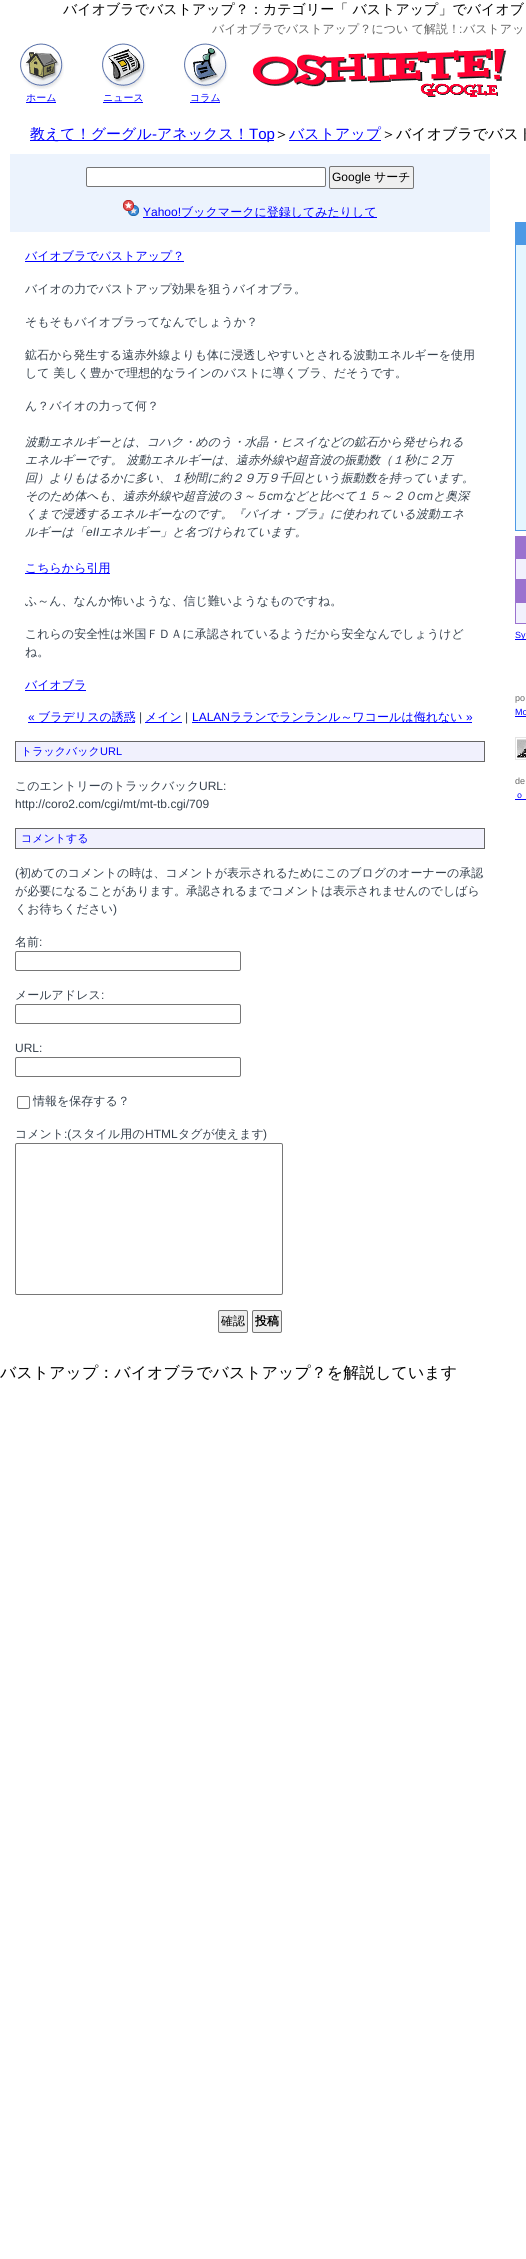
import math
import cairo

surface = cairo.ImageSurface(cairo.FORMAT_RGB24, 526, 2259)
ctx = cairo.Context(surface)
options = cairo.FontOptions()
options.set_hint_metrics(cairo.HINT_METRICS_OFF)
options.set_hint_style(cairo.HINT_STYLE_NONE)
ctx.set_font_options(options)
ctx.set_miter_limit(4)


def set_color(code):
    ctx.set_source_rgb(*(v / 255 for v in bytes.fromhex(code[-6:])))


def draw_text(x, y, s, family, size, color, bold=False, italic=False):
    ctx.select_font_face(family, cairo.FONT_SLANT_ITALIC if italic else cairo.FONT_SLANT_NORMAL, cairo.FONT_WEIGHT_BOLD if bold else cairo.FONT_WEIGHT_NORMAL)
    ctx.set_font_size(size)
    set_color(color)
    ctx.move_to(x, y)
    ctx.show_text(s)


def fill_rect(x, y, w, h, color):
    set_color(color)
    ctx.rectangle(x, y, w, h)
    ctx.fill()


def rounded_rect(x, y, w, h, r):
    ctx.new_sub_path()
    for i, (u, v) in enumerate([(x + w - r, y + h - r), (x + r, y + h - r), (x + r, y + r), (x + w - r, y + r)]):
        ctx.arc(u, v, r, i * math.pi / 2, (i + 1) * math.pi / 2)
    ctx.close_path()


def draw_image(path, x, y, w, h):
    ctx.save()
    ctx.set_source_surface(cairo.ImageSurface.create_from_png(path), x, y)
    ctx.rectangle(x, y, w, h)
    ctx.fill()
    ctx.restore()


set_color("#ffffff")
ctx.paint()
draw_text(63, 14, "バイオブラでバストアップ？：カテゴリー「 バストアップ」でバイオブ", "WenQuanYi Zen Hei Medium", 14, "#000000")
draw_text(212, 33, "バイオブラでバストアップ？につい て解説！", "WenQuanYi Zen Hei Medium", 12, "#666666")
draw_text(459, 33, ":", "Liberation Sans", 12, "#666666")
draw_text(463, 33, "バストアッ", "WenQuanYi Zen Hei Medium", 12, "#666666")
draw_image("assets/img1.png", 252, 48, 255, 49)
draw_image("assets/img2.png", 20, 43, 44, 46)
draw_text(26, 101, "ホーム", "WenQuanYi Zen Hei Medium", 10, "#0000ff")
fill_rect(26, 102, 30, 1, "#0000ff")
draw_image("assets/img3.png", 102, 43, 44, 47)
draw_text(103, 101, "ニュース", "WenQuanYi Zen Hei Medium", 10, "#0000ff")
fill_rect(103, 102, 40, 1, "#0000ff")
draw_image("assets/img4.png", 184, 43, 44, 46)
fill_rect(190, 102, 30, 1, "#0000ff")
draw_text(190, 101, "コラム", "WenQuanYi Zen Hei Medium", 10, "#0000ff")
fill_rect(30, 140, 244, 1, "#0000ff")
draw_text(30, 139, "教えて！グーグル", "WenQuanYi Zen Hei Medium", 15, "#0000ff")
draw_text(152, 139, "-", "Liberation Sans", 15, "#0000ff")
draw_text(157, 139, "アネックス！", "WenQuanYi Zen Hei Medium", 15, "#0000ff")
draw_text(249, 139, "Top", "Liberation Sans", 15, "#0000ff")
draw_text(274, 139, "＞", "WenQuanYi Zen Hei Medium", 15, "#000000")
fill_rect(289, 140, 92, 1, "#0000ff")
draw_text(289, 139, "バストアップ", "WenQuanYi Zen Hei Medium", 15, "#0000ff")
draw_text(381, 139, "＞バイオブラでバスト", "WenQuanYi Zen Hei Medium", 15, "#000000")
fill_rect(10, 154, 480, 78, "#ecf3fd")
set_color("#ffffff")
rounded_rect(86.5, 167.5, 239, 19, 1.5)
ctx.fill_preserve()
set_color("#767676")
ctx.set_line_width(1)
ctx.stroke()
set_color("#efefef")
rounded_rect(329.5, 166.5, 84, 22, 1.5)
ctx.fill_preserve()
set_color("#767676")
ctx.stroke()
draw_text(332, 181, "Google", "Liberation Sans", 12, "#000000")
draw_text(374, 181, "サーチ", "WenQuanYi Zen Hei Medium", 12, "#000000")
draw_image("assets/img5.png", 123, 200, 16, 16)
draw_text(143, 216, "Yahoo!", "Liberation Sans", 12, "#0000ff")
fill_rect(143, 217, 234, 1, "#0000ff")
draw_text(181, 216, "ブックマークに登録してみたりして", "WenQuanYi Zen Hei Medium", 12, "#0000ff")
fill_rect(25, 261, 159, 1, "#0000ff")
draw_text(25, 260, "バイオブラでバストアップ？", "WenQuanYi Zen Hei Medium", 12, "#0000ff")
draw_text(25, 293, "バイオの力でバストアップ効果を狙うバイオブラ。", "WenQuanYi Zen Hei Medium", 12, "#36414d")
draw_text(25, 326, "そもそもバイオブラってなんでしょうか？", "WenQuanYi Zen Hei Medium", 12, "#36414d")
draw_text(25, 359, "鉱石から発生する遠赤外線よりも体に浸透しやすいとされる波動エネルギーを使用", "WenQuanYi Zen Hei Medium", 12, "#36414d")
draw_text(25, 377, "して 美しく豊かで理想的なラインのバストに導くブラ、だそうです。", "WenQuanYi Zen Hei Medium", 12, "#36414d")
draw_text(25, 410, "ん？バイオの力って何？", "WenQuanYi Zen Hei Medium", 12, "#36414d")
draw_text(25, 446, "波動エネルギーとは、コハク・めのう・水晶・ヒスイなどの鉱石から発せられる", "WenQuanYi Zen Hei Medium", 12, "#36414d", italic=True)
draw_text(25, 464, "エネルギーです。 波動エネルギーは、遠赤外線や超音波の振動数（１秒に２万", "WenQuanYi Zen Hei Medium", 12, "#36414d", italic=True)
draw_text(25, 482, "回）よりもはるかに多い、１秒間に約２９万９千回という振動数を持っています。", "WenQuanYi Zen Hei Medium", 12, "#36414d", italic=True)
draw_text(25, 500, "そのため体へも、遠赤外線や超音波の３～５", "WenQuanYi Zen Hei Medium", 12, "#36414d", italic=True)
draw_text(267, 500, "cm", "Liberation Sans", 12, "#36414d", italic=True)
draw_text(283, 500, "などと比べて１５～２０", "WenQuanYi Zen Hei Medium", 12, "#36414d", italic=True)
draw_text(417, 500, "cm", "Liberation Sans", 12, "#36414d", italic=True)
draw_text(433, 500, "と奥深", "WenQuanYi Zen Hei Medium", 12, "#36414d", italic=True)
draw_text(25, 518, "くまで浸透するエネルギーなのです。『バイオ・ブラ』に使われている波動エネ", "WenQuanYi Zen Hei Medium", 12, "#36414d", italic=True)
draw_text(25, 536, "ルギーは「", "WenQuanYi Zen Hei Medium", 12, "#36414d", italic=True)
draw_text(86, 536, "eII", "Liberation Sans", 12, "#36414d", italic=True)
draw_text(99, 536, "エネルギー」と名づけられています。", "WenQuanYi Zen Hei Medium", 12, "#36414d", italic=True)
fill_rect(25, 573, 85, 1, "#0000ff")
draw_text(25, 572, "こちらから引用", "WenQuanYi Zen Hei Medium", 12, "#0000ff")
draw_text(25, 605, "ふ～ん、なんか怖いような、信じ難いようなものですね。", "WenQuanYi Zen Hei Medium", 12, "#36414d")
draw_text(25, 638, "これらの安全性は米国ＦＤＡに承認されているようだから安全なんでしょうけど", "WenQuanYi Zen Hei Medium", 12, "#36414d")
draw_text(25, 656, "ね。", "WenQuanYi Zen Hei Medium", 12, "#36414d")
fill_rect(25, 690, 61, 1, "#0000ff")
draw_text(25, 689, "バイオブラ", "WenQuanYi Zen Hei Medium", 12, "#0000ff")
draw_text(28, 721, "«", "Liberation Sans", 12, "#0000ff")
fill_rect(28, 722, 107, 1, "#0000ff")
draw_text(38, 721, "ブラデリスの誘惑", "WenQuanYi Zen Hei Medium", 12, "#0000ff")
draw_text(139, 721, "|", "Liberation Sans", 12, "#36414d")
fill_rect(145, 722, 37, 1, "#0000ff")
draw_text(145, 721, "メイン", "WenQuanYi Zen Hei Medium", 12, "#0000ff")
draw_text(185, 721, "|", "Liberation Sans", 12, "#36414d")
draw_text(192, 721, "LALAN", "Liberation Sans", 12, "#0000ff")
fill_rect(192, 722, 280, 1, "#0000ff")
draw_text(230, 721, "ラランでランランル～ワコールは侮れない", "WenQuanYi Zen Hei Medium", 12, "#0000ff")
draw_text(466, 721, "»", "Liberation Sans", 12, "#0000ff")
set_color("#f1f1fd")
ctx.rectangle(15.5, 741.5, 469, 20)
ctx.fill_preserve()
set_color("#666666")
ctx.stroke()
draw_text(21, 755, "トラックバック", "WenQuanYi Zen Hei Medium", 11, "#0000ff")
draw_text(100, 755, "URL", "Liberation Sans", 11, "#0000ff")
draw_text(15, 790, "このエントリーのトラックバック", "WenQuanYi Zen Hei Medium", 12, "#36414d")
draw_text(199, 790, "URL:", "Liberation Sans", 12, "#36414d")
draw_text(15, 808, "http://coro2.com/cgi/mt/mt-tb.cgi/709", "Liberation Sans", 12, "#36414d")
set_color("#f1f1fd")
ctx.rectangle(15.5, 828.5, 469, 20)
ctx.fill_preserve()
set_color("#666666")
ctx.stroke()
draw_text(21, 842, "コメントする", "WenQuanYi Zen Hei Medium", 11, "#0000ff")
draw_text(15, 877, "(", "Liberation Sans", 12, "#36414d")
draw_text(19, 877, "初めてのコメントの時は、コメントが表示されるためにこのブログのオーナーの承認", "WenQuanYi Zen Hei Medium", 12, "#36414d")
draw_text(15, 895, "が必要になることがあります。承認されるまでコメントは表示されませんのでしばら", "WenQuanYi Zen Hei Medium", 12, "#36414d")
draw_text(15, 913, "くお待ちください", "WenQuanYi Zen Hei Medium", 12, "#36414d")
draw_text(113, 913, ")", "Liberation Sans", 12, "#36414d")
draw_text(15, 946, "名前", "WenQuanYi Zen Hei Medium", 12, "#36414d")
draw_text(39, 946, ":", "Liberation Sans", 12, "#36414d")
rounded_rect(15.5, 951.5, 225, 19, 1.5)
set_color("#767676")
ctx.stroke()
draw_text(15, 999, "メールアドレス", "WenQuanYi Zen Hei Medium", 12, "#36414d")
draw_text(101, 999, ":", "Liberation Sans", 12, "#36414d")
rounded_rect(15.5, 1004.5, 225, 19, 1.5)
set_color("#767676")
ctx.stroke()
draw_text(15, 1052, "URL:", "Liberation Sans", 12, "#36414d")
rounded_rect(15.5, 1057.5, 225, 19, 1.5)
set_color("#767676")
ctx.stroke()
rounded_rect(17.5, 1096.5, 12, 12, 1.5)
ctx.stroke()
draw_text(33, 1105, "情報を保存する？", "WenQuanYi Zen Hei Medium", 12, "#36414d")
draw_text(15, 1138, "コメント", "WenQuanYi Zen Hei Medium", 12, "#36414d")
draw_text(64, 1138, ":(", "Liberation Sans", 12, "#36414d")
draw_text(71, 1138, "スタイル用の", "WenQuanYi Zen Hei Medium", 12, "#36414d")
draw_text(145, 1138, "HTML", "Liberation Sans", 12, "#36414d")
draw_text(178, 1138, "タグが使えます", "WenQuanYi Zen Hei Medium", 12, "#36414d")
draw_text(263, 1138, ")", "Liberation Sans", 12, "#36414d")
rounded_rect(15.5, 1143.5, 267, 151, 1.5)
set_color("#767676")
ctx.stroke()
set_color("#efefef")
rounded_rect(218.5, 1310.5, 29, 22, 1.5)
ctx.fill_preserve()
set_color("#767676")
ctx.stroke()
draw_text(221, 1325, "確認", "WenQuanYi Zen Hei Medium", 12, "#000000")
set_color("#efefef")
rounded_rect(252.5, 1310.5, 29, 22, 1.5)
ctx.fill_preserve()
set_color("#767676")
ctx.stroke()
draw_text(255, 1325, "投稿", "WenQuanYi Zen Hei", 12, "#000000", bold=True)
fill_rect(515, 222, 11, 22, "#4d99e5")
set_color("#e5f6ff")
ctx.rectangle(515.5, 244.5, 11, 286)
ctx.fill_preserve()
set_color("#4d99e5")
ctx.stroke()
fill_rect(515, 536, 11, 22, "#9b72cf")
set_color("#f1f1fd")
ctx.rectangle(515.5, 558.5, 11, 21)
ctx.fill_preserve()
set_color("#9b72cf")
ctx.stroke()
fill_rect(515, 580, 11, 22, "#9b72cf")
set_color("#f1f1fd")
ctx.rectangle(515.5, 602.5, 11, 21)
ctx.fill_preserve()
set_color("#9b72cf")
ctx.stroke()
fill_rect(515, 639, 11, 1, "#0000ff")
draw_text(515, 638, "Sy", "Liberation Sans", 9, "#0000ff")
draw_text(515, 701, "po", "Liberation Sans", 9, "#666666")
draw_text(515, 715, "Mo", "Liberation Sans", 9, "#0000ff")
fill_rect(515, 716, 11, 1, "#0000ff")
draw_image("assets/img6.png", 515, 737, 11, 23)
draw_text(515, 784, "de", "Liberation Sans", 9, "#666666")
draw_text(515, 798, "ｏ", "WenQuanYi Zen Hei Medium", 9, "#0000ff")
fill_rect(515, 799, 11, 1, "#0000ff")
draw_text(0, 1378, "バストアップ：バイオブラでバストアップ？を解説しています", "WenQuanYi Zen Hei Medium", 16, "#000000")
surface.write_to_png("output.png")
